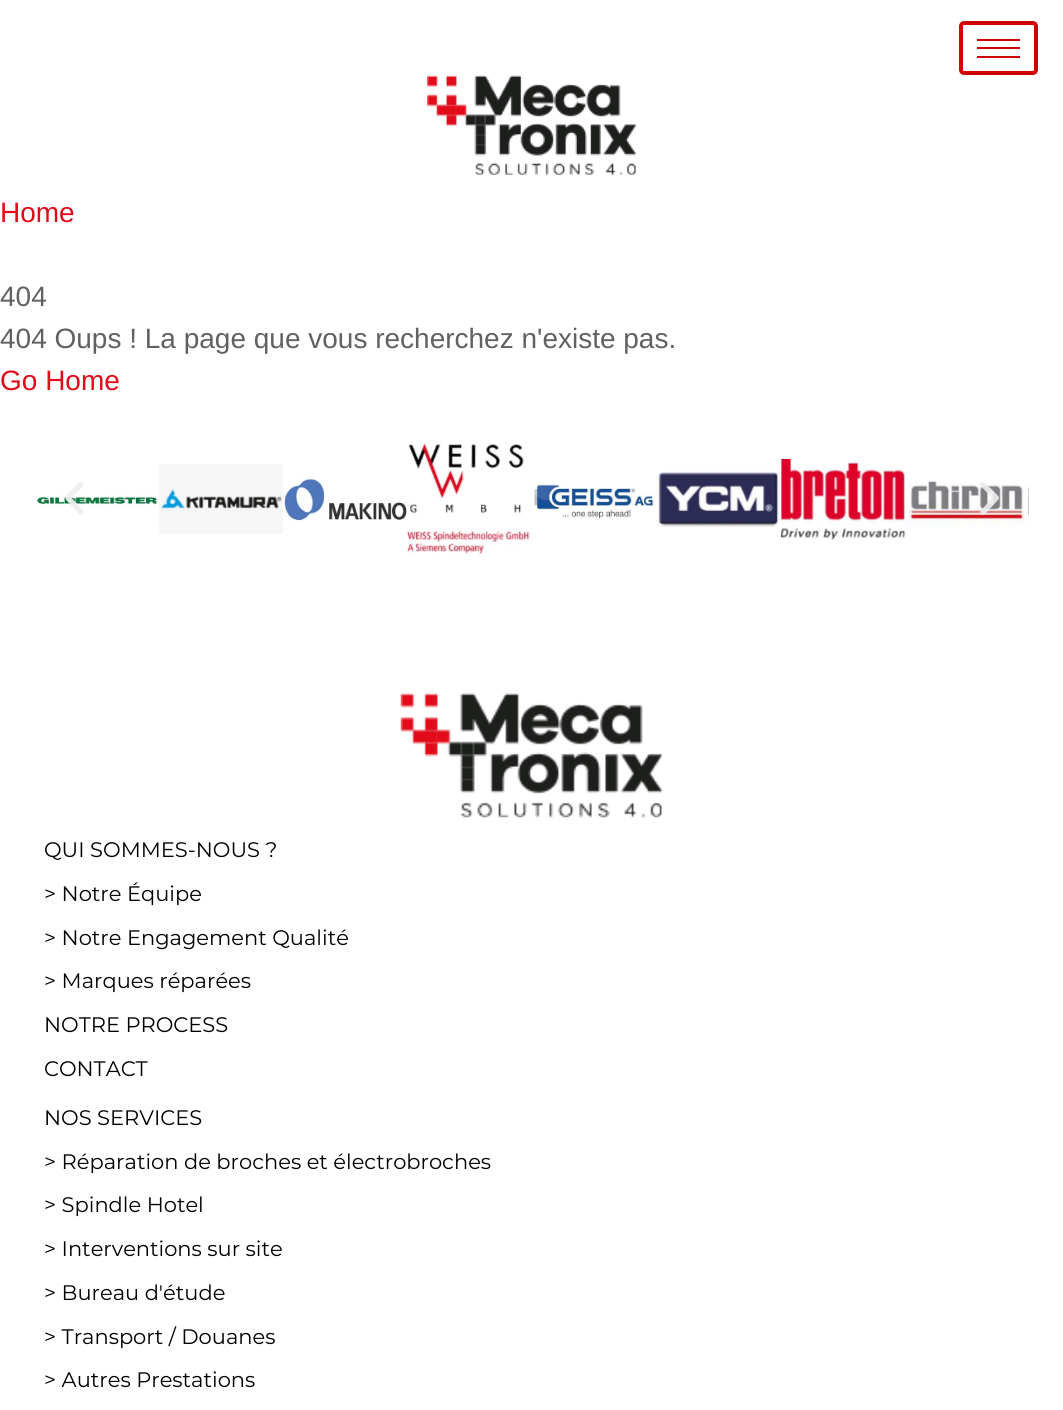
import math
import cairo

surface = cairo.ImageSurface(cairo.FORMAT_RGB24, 1063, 1410)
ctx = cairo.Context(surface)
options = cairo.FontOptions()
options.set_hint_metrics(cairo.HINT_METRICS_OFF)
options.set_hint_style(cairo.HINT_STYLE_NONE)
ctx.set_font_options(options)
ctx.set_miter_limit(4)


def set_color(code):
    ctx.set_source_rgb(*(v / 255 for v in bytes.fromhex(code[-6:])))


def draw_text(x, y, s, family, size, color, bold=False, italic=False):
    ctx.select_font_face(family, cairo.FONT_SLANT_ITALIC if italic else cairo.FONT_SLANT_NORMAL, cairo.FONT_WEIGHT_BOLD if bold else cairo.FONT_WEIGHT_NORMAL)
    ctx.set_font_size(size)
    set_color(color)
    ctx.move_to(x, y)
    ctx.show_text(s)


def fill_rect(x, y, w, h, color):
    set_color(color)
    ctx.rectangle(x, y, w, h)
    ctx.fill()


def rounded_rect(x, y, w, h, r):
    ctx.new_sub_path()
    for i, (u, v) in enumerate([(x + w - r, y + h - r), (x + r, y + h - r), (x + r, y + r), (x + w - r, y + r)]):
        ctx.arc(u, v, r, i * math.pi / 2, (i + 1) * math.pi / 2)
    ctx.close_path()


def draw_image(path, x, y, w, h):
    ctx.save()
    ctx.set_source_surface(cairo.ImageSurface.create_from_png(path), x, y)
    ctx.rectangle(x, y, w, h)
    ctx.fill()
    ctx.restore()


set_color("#ffffff")
ctx.paint()
rounded_rect(961, 23, 75, 50, 3)
set_color("#ce0404")
ctx.set_line_width(4)
ctx.stroke()
fill_rect(977, 39, 43, 2, "#ce0404")
fill_rect(977, 47, 43, 2, "#ce0404")
fill_rect(977, 56, 43, 2, "#ce0404")
draw_image("assets/img1.png", 427, 75, 209, 100)
draw_text(0, 222, "Home", "Liberation Sans", 28, "#e10b19")
draw_text(0, 306, "404", "Liberation Sans", 28, "#616161")
draw_text(0, 348, "404 Oups ! La page que vous recherchez n'existe pas.", "Liberation Sans", 28, "#616161")
draw_text(0, 390, "Go Home", "Liberation Sans", 28, "#e10b19")
draw_image("assets/img2.png", 35, 495, 124, 11)
draw_image("assets/img3.png", 159, 464, 124, 70)
draw_image("assets/img4.png", 283, 478, 124, 44)
draw_image("assets/img5.png", 407, 443, 125, 114)
draw_image("assets/img6.png", 534, 481, 122, 38)
draw_image("assets/img7.png", 656, 471, 123, 57)
draw_image("assets/img8.png", 781, 459, 125, 81)
draw_image("assets/img9.png", 904, 473, 121, 65)
draw_image("assets/img10.png", 1028, 487, 1, 28)
draw_image("assets/img11.png", 65, 482, 19, 33)
draw_image("assets/img12.png", 980, 482, 19, 33)
draw_image("assets/img13.png", 400, 693, 262, 125)
draw_text(44, 857, "QUI SOMMES-NOUS ?", "Montserrat", 21, "#000000")
draw_text(44, 901, "> Notre Équipe", "Montserrat", 21, "#000000")
draw_text(44, 945, "> Notre Engagement Qualité", "Montserrat", 21, "#000000")
draw_text(44, 988, "> Marques réparées", "Montserrat", 21, "#000000")
draw_text(44, 1032, "NOTRE PROCESS", "Montserrat", 21, "#000000")
draw_text(44, 1076, "CONTACT", "Montserrat", 21, "#000000")
draw_text(44, 1125, "NOS SERVICES", "Montserrat", 21, "#000000")
draw_text(44, 1169, "> Réparation de broches et électrobroches", "Montserrat", 21, "#000000")
draw_text(44, 1212, "> Spindle Hotel", "Montserrat", 21, "#000000")
draw_text(44, 1256, "> Interventions sur site", "Montserrat", 21, "#000000")
draw_text(44, 1300, "> Bureau d'étude", "Montserrat", 21, "#000000")
draw_text(44, 1344, "> Transport / Douanes", "Montserrat", 21, "#000000")
draw_text(44, 1387, "> Autres Prestations", "Montserrat", 21, "#000000")
surface.write_to_png("output.png")
